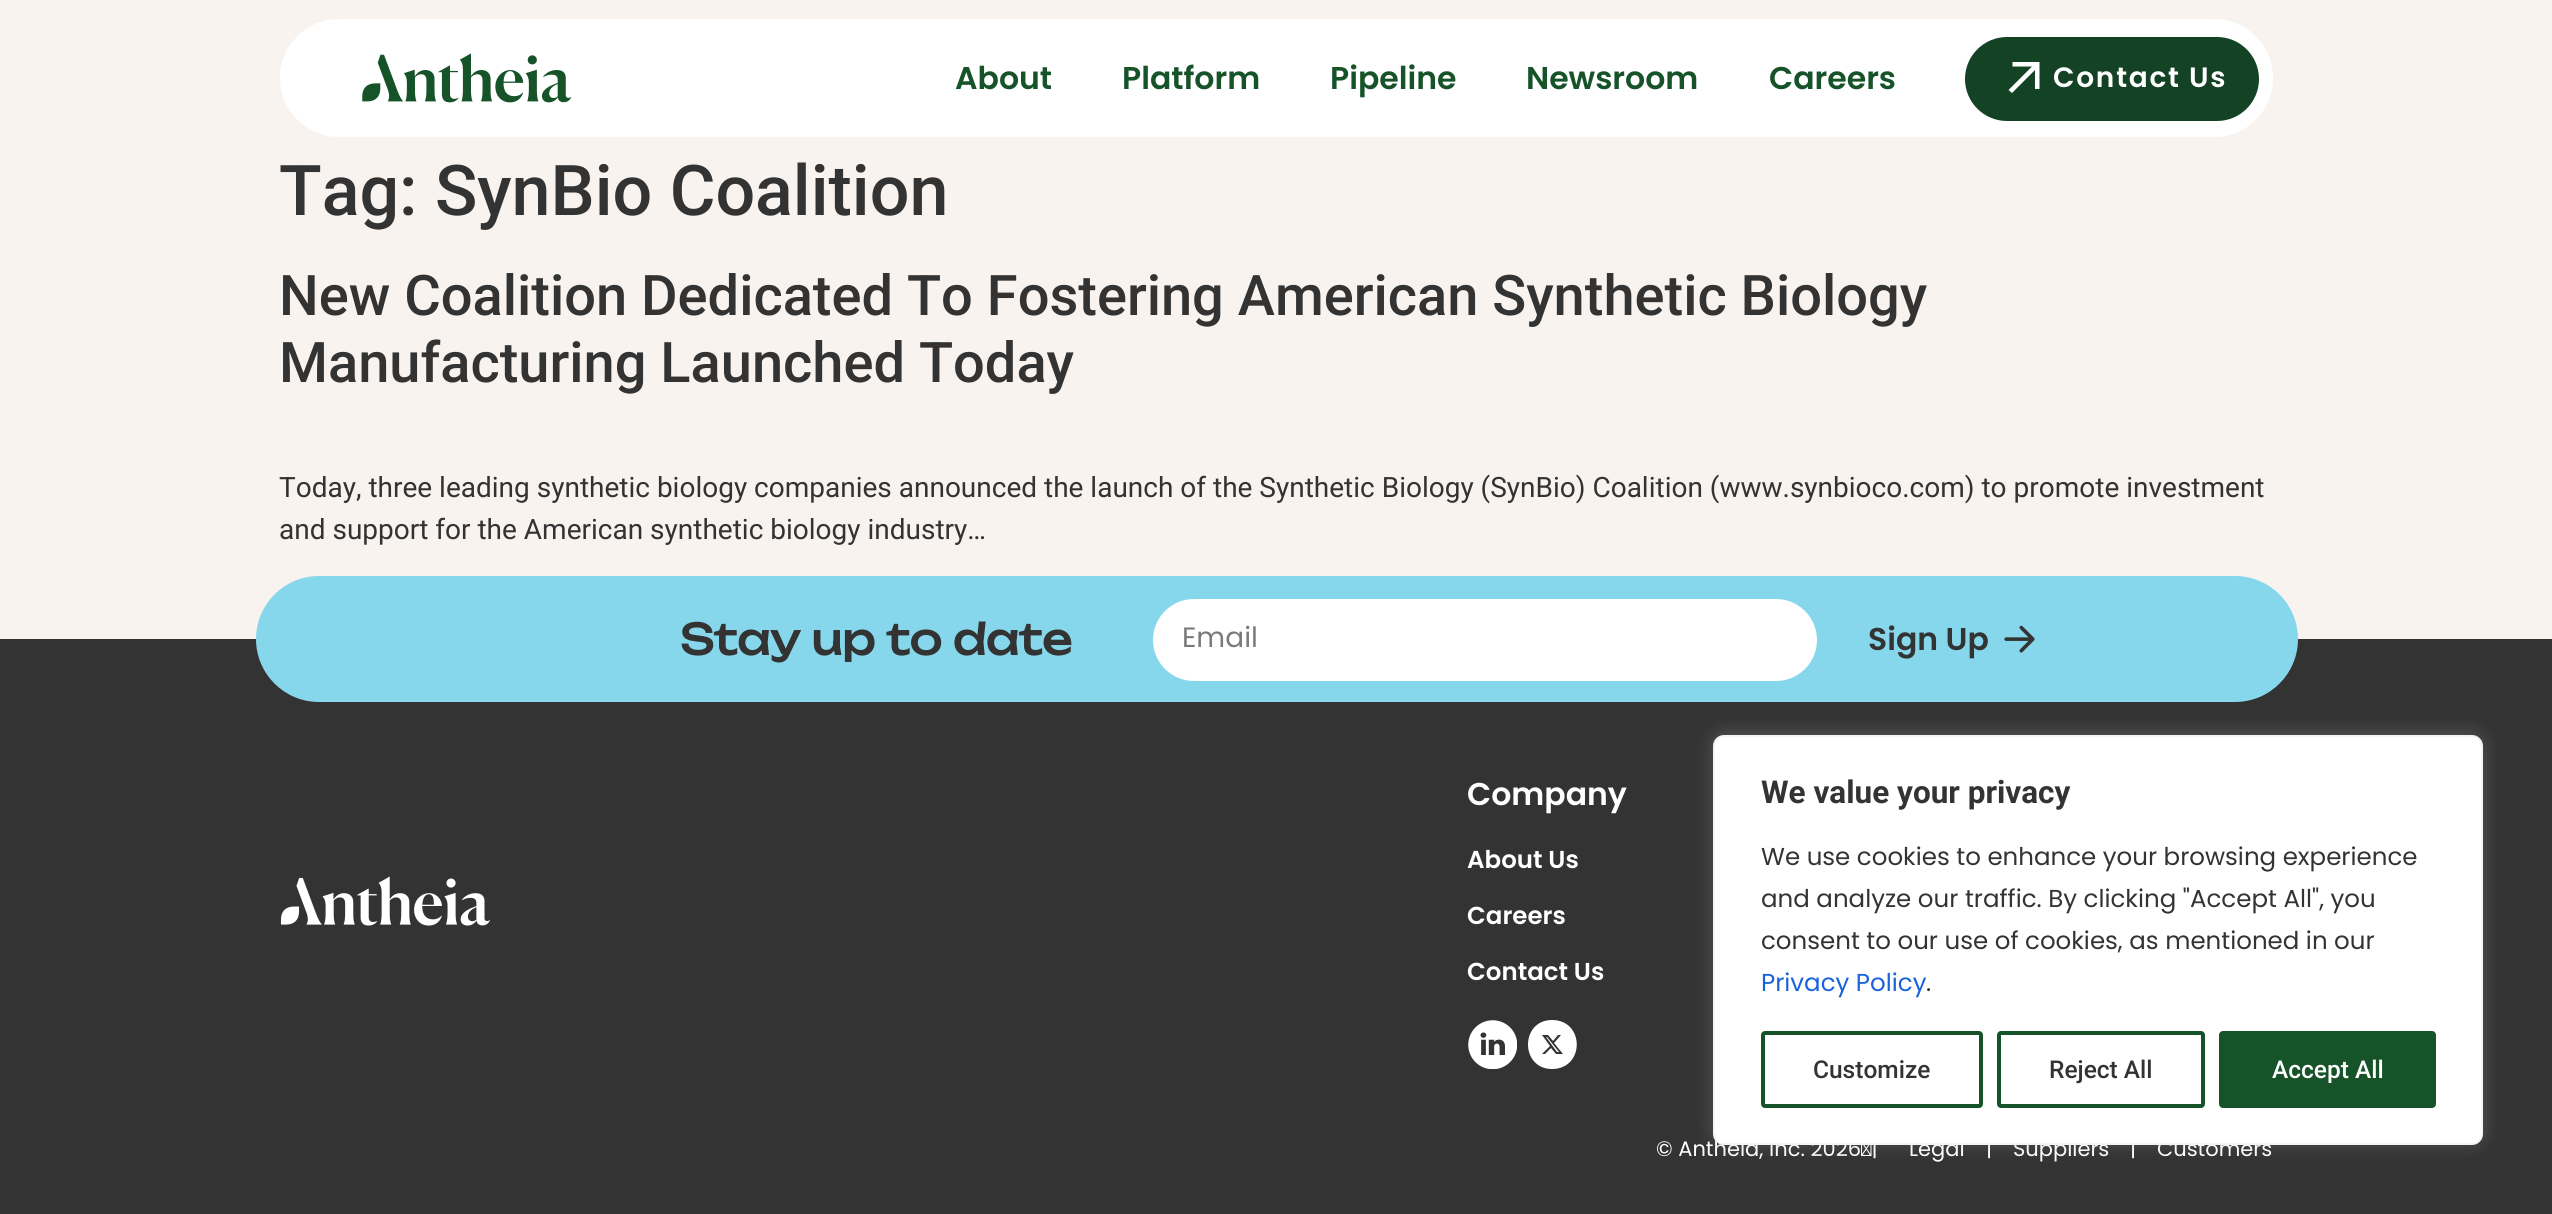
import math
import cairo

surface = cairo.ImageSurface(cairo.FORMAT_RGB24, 2552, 1214)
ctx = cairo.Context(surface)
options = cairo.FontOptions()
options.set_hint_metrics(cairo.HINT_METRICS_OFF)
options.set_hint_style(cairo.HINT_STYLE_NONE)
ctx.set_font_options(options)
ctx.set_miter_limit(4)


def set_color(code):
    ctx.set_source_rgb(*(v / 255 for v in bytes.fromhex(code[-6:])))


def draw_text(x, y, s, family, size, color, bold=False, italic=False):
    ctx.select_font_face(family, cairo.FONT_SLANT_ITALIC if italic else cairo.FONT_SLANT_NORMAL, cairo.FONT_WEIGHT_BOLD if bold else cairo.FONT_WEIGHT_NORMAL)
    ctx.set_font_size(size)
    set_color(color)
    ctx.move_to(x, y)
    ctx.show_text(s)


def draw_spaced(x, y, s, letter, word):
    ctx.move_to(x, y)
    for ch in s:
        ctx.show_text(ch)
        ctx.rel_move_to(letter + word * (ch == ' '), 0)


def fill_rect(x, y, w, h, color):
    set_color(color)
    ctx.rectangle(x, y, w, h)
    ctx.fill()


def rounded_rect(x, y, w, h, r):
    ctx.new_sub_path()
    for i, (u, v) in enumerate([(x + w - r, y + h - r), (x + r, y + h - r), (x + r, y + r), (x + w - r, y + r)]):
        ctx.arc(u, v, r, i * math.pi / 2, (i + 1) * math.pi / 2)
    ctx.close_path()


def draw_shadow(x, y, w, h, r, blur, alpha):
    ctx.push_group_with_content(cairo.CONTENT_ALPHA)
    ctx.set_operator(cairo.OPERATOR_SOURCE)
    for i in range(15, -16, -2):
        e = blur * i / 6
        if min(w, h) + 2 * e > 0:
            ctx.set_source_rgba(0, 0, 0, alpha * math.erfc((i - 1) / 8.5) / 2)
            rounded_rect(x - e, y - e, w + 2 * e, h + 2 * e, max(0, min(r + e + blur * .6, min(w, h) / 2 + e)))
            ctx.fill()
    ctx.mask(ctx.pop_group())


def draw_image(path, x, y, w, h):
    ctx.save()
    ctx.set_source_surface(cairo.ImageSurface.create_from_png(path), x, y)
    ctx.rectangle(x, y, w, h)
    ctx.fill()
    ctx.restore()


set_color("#f8f3ef")
ctx.paint()
set_color("#ffffff")
rounded_rect(280, 19, 1993, 118, 59)
ctx.fill()
draw_image("assets/img1.png", 362, 53, 210, 50)
draw_text(955, 89, "About", "Poppins SemiBold", 31.5, "#165329")
draw_text(1122, 89, "Platform", "Poppins SemiBold", 31.5, "#165329")
draw_text(1330, 89, "Pipeline", "Poppins SemiBold", 31.5, "#165329")
draw_text(1526, 89, "Newsroom", "Poppins SemiBold", 31.5, "#165329")
draw_text(1769, 89, "Careers", "Poppins SemiBold", 31.5, "#165329")
set_color("#144224")
rounded_rect(1967, 39, 290, 80, 40)
ctx.fill_preserve()
ctx.set_line_width(4)
ctx.stroke()
set_color("#ffffff")
ctx.new_path()
ctx.move_to(2012.5, 66.5)
ctx.line_to(2032, 66.5)
ctx.line_to(2008.5, 90)
ctx.line_to(2012, 93)
ctx.line_to(2035, 70)
ctx.line_to(2035, 89)
ctx.line_to(2039.5, 89)
ctx.line_to(2039.5, 62)
ctx.line_to(2012.5, 62)
ctx.close_path()
ctx.fill()
ctx.set_font_size(28)
draw_spaced(2053, 87, "Contact Us", 1.75, 0)
draw_text(279, 215, "Tag: SynBio Coalition", "Roboto Medium", 70, "#333333")
draw_text(279, 315, "New Coalition Dedicated To Fostering American Synthetic Biology", "Roboto Medium", 56, "#333333")
draw_text(279, 382, "Manufacturing Launched Today", "Roboto Medium", 56, "#333333")
draw_text(279, 497, "Today, three leading synthetic biology companies announced the launch of the Synthetic Biology (SynBio) Coalition (www.synbioco.com) to promote investment", "Roboto", 28, "#333333")
draw_text(279, 539, "and support for the American synthetic biology industry…", "Roboto", 28, "#333333")
fill_rect(0, 639, 2552, 575, "#333333")
set_color("#86d7eb")
rounded_rect(256, 576, 2042, 126, 63)
ctx.fill()
draw_text(680, 655, "Stay up to date", "Unbounded", 42, "#333333", bold=True)
set_color("#ffffff")
rounded_rect(1153, 599, 664, 82, 41)
ctx.fill()
draw_text(1182, 647, "Email", "Poppins", 28, "#7a7a7a")
draw_text(1868, 650, "Sign Up", "Poppins SemiBold", 31.5, "#333333")
draw_image("assets/img2.png", 2004, 625, 31, 28)
draw_image("assets/img3.png", 280, 876, 210, 50)
draw_text(1467, 805, "Company", "Poppins SemiBold", 31.5, "#ffffff")
draw_text(1467, 868, "About Us", "Poppins SemiBold", 24.5, "#ffffff")
draw_text(1467, 924, "Careers", "Poppins SemiBold", 24.5, "#ffffff")
draw_text(1467, 980, "Contact Us", "Poppins SemiBold", 24.5, "#ffffff")
draw_image("assets/img4.png", 1468, 1020, 49, 49)
ctx.set_fill_rule(cairo.FILL_RULE_EVEN_ODD)
ctx.new_path()
ctx.move_to(1552, 1020)
ctx.curve_to(1585, 1020, 1585, 1069, 1552, 1069)
ctx.curve_to(1520, 1069, 1520, 1020, 1552, 1020)
ctx.close_path()
ctx.move_to(1558, 1035)
ctx.line_to(1561, 1035)
ctx.line_to(1554, 1043)
ctx.line_to(1563, 1054)
ctx.line_to(1556, 1054)
ctx.line_to(1551, 1048)
ctx.line_to(1545, 1054)
ctx.line_to(1542, 1054)
ctx.line_to(1550, 1046)
ctx.line_to(1542, 1035)
ctx.line_to(1548, 1035)
ctx.line_to(1553, 1041)
ctx.close_path()
ctx.move_to(1557, 1052)
ctx.line_to(1559, 1052)
ctx.line_to(1547, 1037)
ctx.line_to(1546, 1037)
ctx.close_path()
ctx.fill()
draw_text(1656, 1156, "© Antheia, Inc. 2026 |", "Poppins", 21, "#ffffff")
draw_text(1909, 1156, "Legal", "Poppins", 21, "#ffffff")
draw_text(1986, 1156, "|", "Poppins", 21, "#ffffff")
draw_text(2013, 1156, "Suppliers", "Poppins", 21, "#ffffff")
draw_text(2130, 1156, "|", "Poppins", 21, "#ffffff")
draw_text(2157, 1156, "Customers", "Poppins", 21, "#ffffff")
set_color("#acabab")
draw_shadow(1713, 733, 770, 410, 11, 9, 0.3)
set_color("#ffffff")
rounded_rect(1714, 736, 768, 408, 10)
ctx.fill_preserve()
set_color("#f4f4f4")
ctx.set_line_width(2)
ctx.stroke()
draw_text(1761, 803, "We value your privacy", "Roboto", 31.5, "#333333", bold=True)
draw_text(1761, 865, "We use cookies to enhance your browsing experience", "Poppins", 24.5, "#333333")
draw_text(1761, 907, "and analyze our traffic. By clicking \"Accept All\", you", "Poppins", 24.5, "#333333")
draw_text(1761, 949, "consent to our use of cookies, as mentioned in our", "Poppins", 24.5, "#333333")
draw_text(1761, 991, "Privacy Policy", "Poppins", 24.5, "#1863dc")
draw_text(1926, 991, ".", "Poppins", 24.5, "#333333")
rounded_rect(1763, 1033, 218, 73, 2)
set_color("#165329")
ctx.set_line_width(4)
ctx.stroke()
draw_text(1813, 1078, "Customize", "Roboto Medium", 24.5, "#333333")
rounded_rect(1999, 1033, 204, 73, 2)
set_color("#165329")
ctx.stroke()
draw_text(2049, 1078, "Reject All", "Roboto Medium", 24.5, "#333333")
set_color("#165329")
rounded_rect(2221, 1033, 213, 73, 2)
ctx.fill_preserve()
ctx.stroke()
draw_text(2272, 1078, "Accept All", "Roboto Medium", 24.5, "#ffffff")
surface.write_to_png("output.png")
